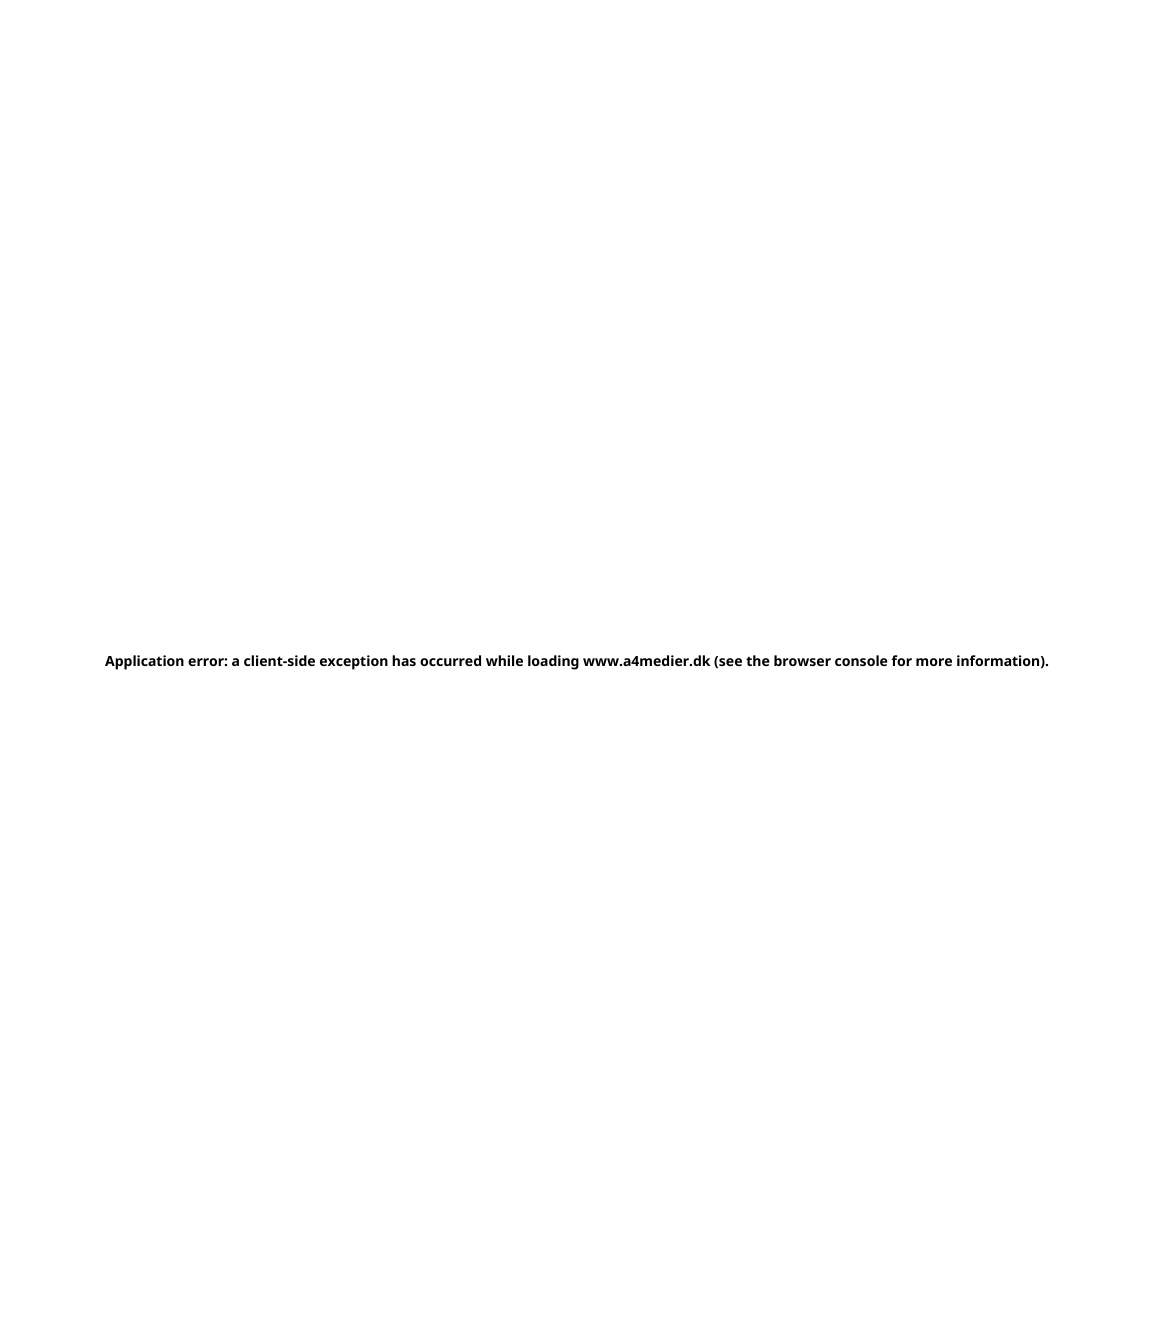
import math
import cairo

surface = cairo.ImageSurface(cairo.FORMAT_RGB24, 1154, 1322)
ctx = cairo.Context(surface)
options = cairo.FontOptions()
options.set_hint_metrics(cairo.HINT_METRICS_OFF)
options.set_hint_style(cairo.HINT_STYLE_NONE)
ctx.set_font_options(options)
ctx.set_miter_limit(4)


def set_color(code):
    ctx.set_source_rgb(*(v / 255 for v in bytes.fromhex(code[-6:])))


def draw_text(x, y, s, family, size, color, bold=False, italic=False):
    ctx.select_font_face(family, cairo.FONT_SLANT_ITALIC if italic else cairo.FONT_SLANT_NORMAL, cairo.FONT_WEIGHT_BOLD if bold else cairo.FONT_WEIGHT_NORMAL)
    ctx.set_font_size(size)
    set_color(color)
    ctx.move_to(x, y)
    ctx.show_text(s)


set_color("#ffffff")
ctx.paint()
draw_text(105, 666, "Application error: a client-side exception has occurred while loading www.a4medier.dk (see the browser console for more information).", "Noto Sans", 14, "#000000", bold=True)
surface.write_to_png("output.png")
